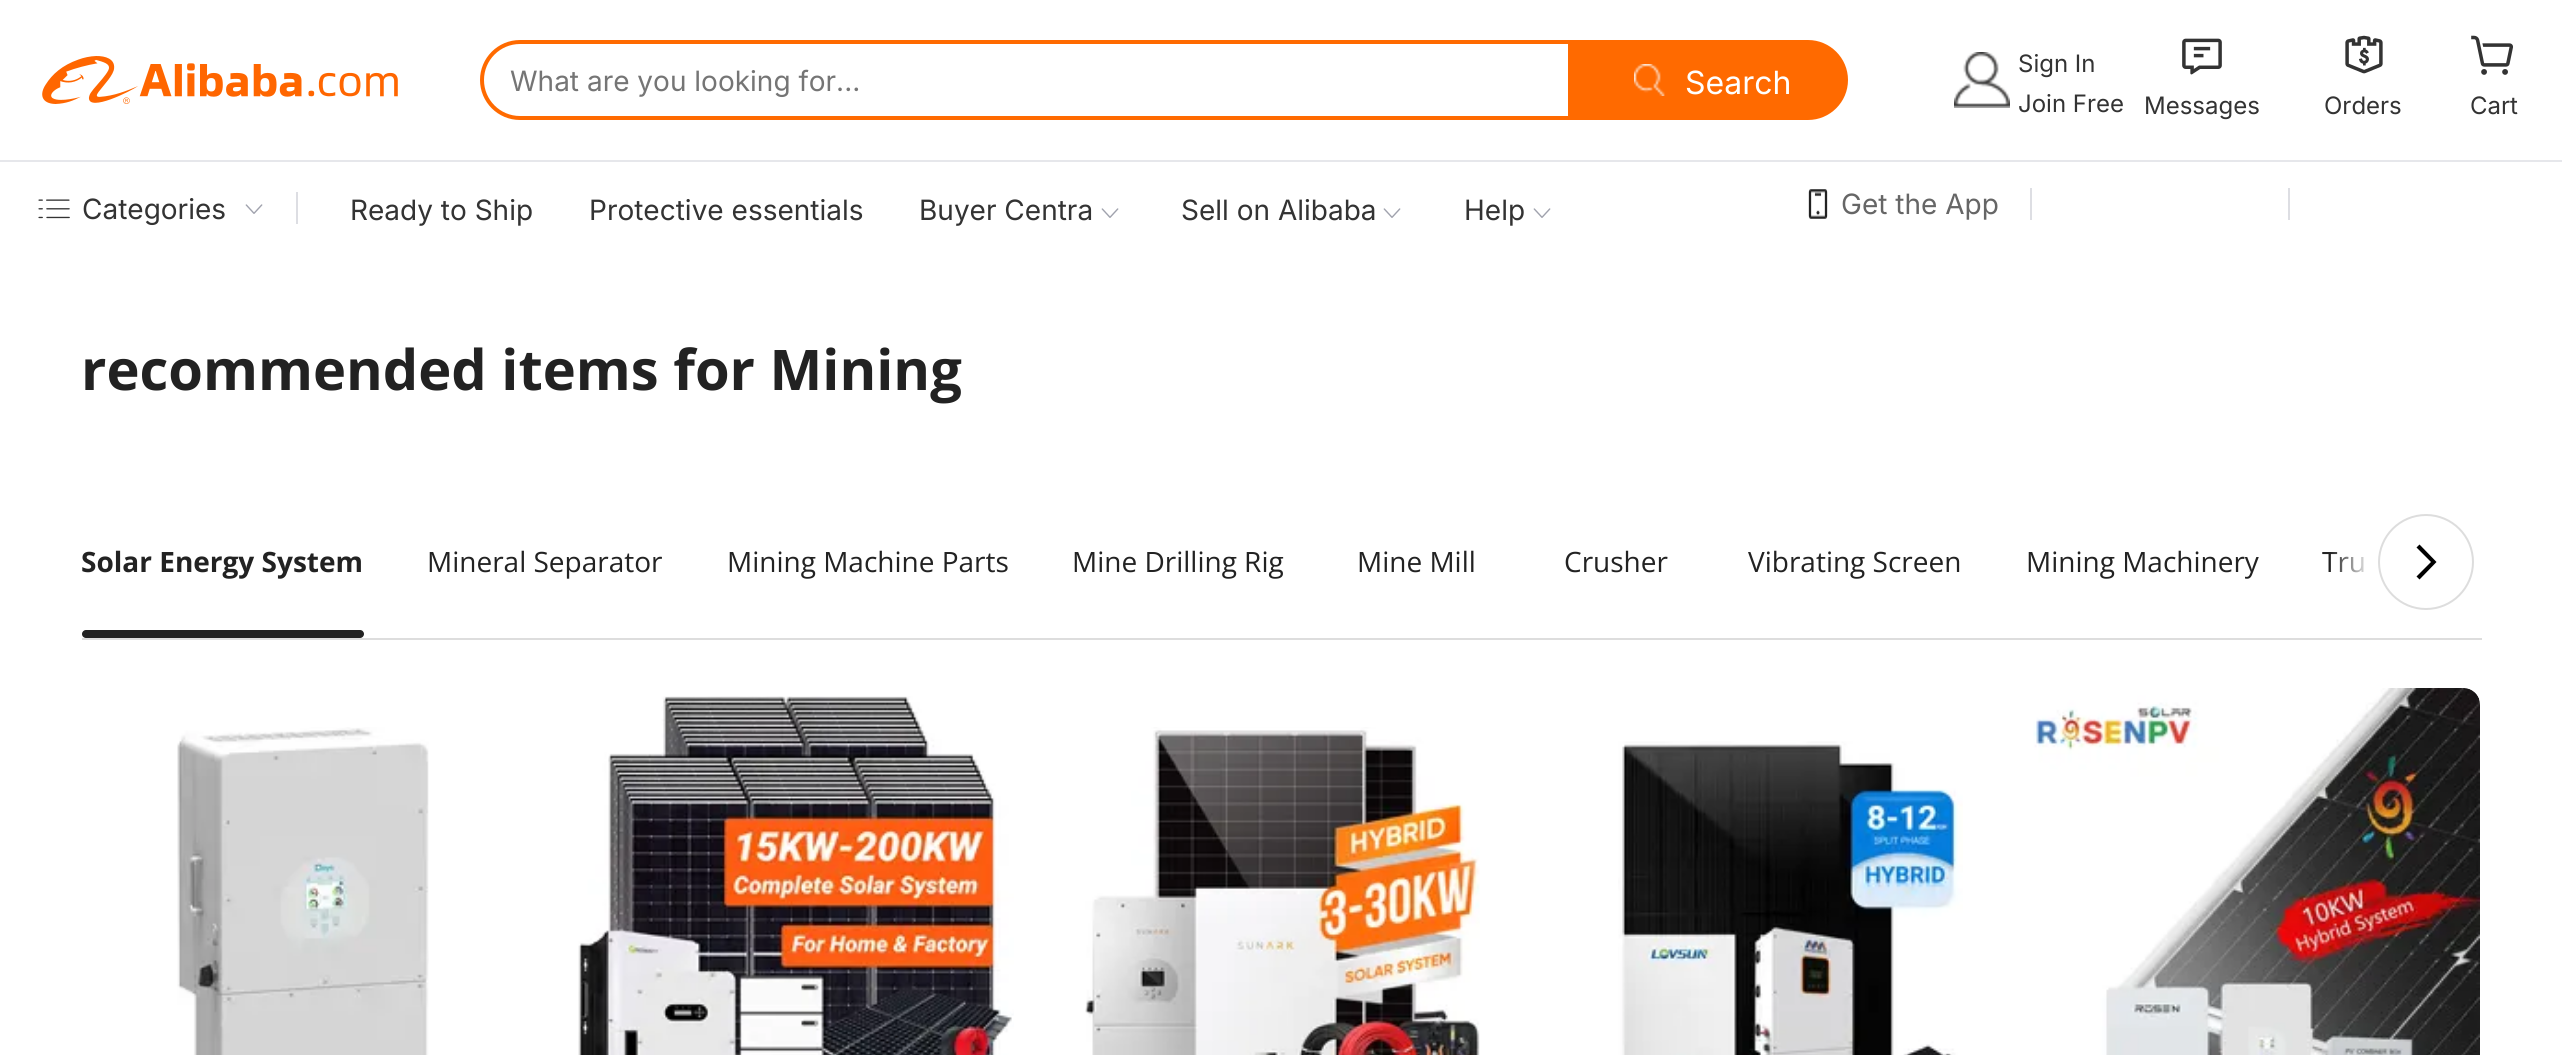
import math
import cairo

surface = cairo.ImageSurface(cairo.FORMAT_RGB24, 2562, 1055)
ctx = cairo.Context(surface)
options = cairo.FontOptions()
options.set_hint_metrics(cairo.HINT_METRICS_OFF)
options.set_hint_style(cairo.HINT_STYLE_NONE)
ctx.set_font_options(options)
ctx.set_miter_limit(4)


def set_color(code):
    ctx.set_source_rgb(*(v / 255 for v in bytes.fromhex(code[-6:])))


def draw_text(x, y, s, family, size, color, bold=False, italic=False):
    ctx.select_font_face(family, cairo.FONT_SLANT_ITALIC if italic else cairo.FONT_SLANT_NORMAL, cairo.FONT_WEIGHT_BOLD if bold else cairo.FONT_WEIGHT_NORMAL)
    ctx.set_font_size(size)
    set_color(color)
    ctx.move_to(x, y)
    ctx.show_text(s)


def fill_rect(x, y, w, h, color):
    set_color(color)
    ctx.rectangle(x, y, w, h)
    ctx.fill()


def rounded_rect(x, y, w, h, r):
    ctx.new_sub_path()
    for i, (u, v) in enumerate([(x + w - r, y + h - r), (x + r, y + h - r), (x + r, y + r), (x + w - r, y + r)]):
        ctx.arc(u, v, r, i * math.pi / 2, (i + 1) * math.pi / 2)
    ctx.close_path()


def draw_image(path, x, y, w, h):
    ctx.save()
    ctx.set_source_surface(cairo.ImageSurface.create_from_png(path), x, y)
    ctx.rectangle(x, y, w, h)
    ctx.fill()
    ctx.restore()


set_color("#ffffff")
ctx.paint()
draw_image("assets/img1.png", 42, 56, 356, 48)
ctx.new_path()
ctx.move_to(520, 42)
ctx.line_to(1572, 42)
ctx.line_to(1572, 118)
ctx.line_to(520, 118)
ctx.curve_to(499, 118, 482, 101, 482, 80)
ctx.curve_to(482, 59, 499, 42, 520, 42)
ctx.close_path()
set_color("#ff6a00")
ctx.set_line_width(4)
ctx.stroke()
draw_text(510, 91, "What are you looking for...", "Inter", 28, "#757575")
set_color("#ff6a00")
ctx.new_path()
ctx.move_to(1568, 40)
ctx.line_to(1808, 40)
ctx.curve_to(1830, 40, 1848, 58, 1848, 80)
ctx.curve_to(1848, 102, 1830, 120, 1808, 120)
ctx.line_to(1568, 120)
ctx.close_path()
ctx.fill()
draw_image("assets/img2.png", 1634, 64, 31, 32)
draw_text(1685, 94, "Search", "Inter", 32, "#ffffff")
draw_image("assets/img3.png", 1954, 52, 56, 56)
draw_text(2018, 72, "Sign In", "Inter", 24, "#333333")
draw_text(2018, 112, "Join Free", "Inter", 24, "#333333")
draw_image("assets/img4.png", 2182, 38, 40, 37)
draw_text(2144, 114, "Messages", "Inter", 24, "#333333")
draw_image("assets/img5.png", 2345, 35, 38, 39)
draw_text(2324, 114, "Orders", "Inter", 24, "#333333")
draw_image("assets/img6.png", 2471, 35, 42, 40)
draw_text(2470, 114, "Cart", "Inter", 24, "#333333")
fill_rect(0, 160, 2562, 2, "#e6e7eb")
draw_image("assets/img7.png", 38, 199, 32, 20)
draw_text(82, 219, "Categories", "Inter", 28, "#333333")
draw_image("assets/img8.png", 245, 204, 18, 10)
fill_rect(296, 192, 2, 32, "#dddee3")
draw_text(350, 220, "Ready to Ship", "Inter", 28, "#333333")
draw_text(589, 220, "Protective essentials", "Inter", 28, "#333333")
draw_text(919, 220, "Buyer Centra", "Inter", 28, "#333333")
draw_image("assets/img8.png", 1101, 208, 18, 10)
draw_text(1181, 220, "Sell on Alibaba", "Inter", 28, "#333333")
draw_image("assets/img8.png", 1383, 208, 18, 10)
draw_text(1464, 220, "Help", "Inter", 28, "#333333")
draw_image("assets/img8.png", 1533, 208, 18, 10)
draw_image("assets/img9.png", 1808, 189, 20, 30)
draw_text(1841, 214, "Get the App", "Inter", 28, "#666666")
fill_rect(2030, 188, 2, 32, "#dddee3")
fill_rect(2288, 188, 2, 32, "#dddee3")
draw_text(81, 390, "recommended items for Mining", "Open Sans", 56, "#222222", bold=True)
fill_rect(82, 638, 2400, 2, "#dddddd")
draw_text(81, 572, "Solar Energy System", "Open Sans", 28, "#222222", bold=True)
rounded_rect(82, 630, 282, 8, 4)
ctx.fill()
draw_text(427, 572, "Mineral Separator", "Open Sans", 28, "#222222")
draw_text(727, 572, "Mining Machine Parts", "Open Sans", 28, "#222222")
draw_text(1072, 572, "Mine Drilling Rig", "Open Sans", 28, "#222222")
draw_text(1357, 572, "Mine Mill", "Open Sans", 28, "#222222")
draw_text(1564, 572, "Crusher", "Open Sans", 28, "#222222")
draw_text(1748, 572, "Vibrating Screen", "Open Sans", 28, "#222222")
draw_text(2026, 572, "Mining Machinery", "Open Sans", 28, "#222222")
draw_text(2322, 572, "Tru", "Open Sans", 28, "#222222")
gradient = cairo.LinearGradient(2372, 562, 2330, 562)
gradient.add_color_stop_rgba(0, 0, 0, 0, 1)
gradient.add_color_stop_rgba(0, 1, 1, 1, 1)
gradient.add_color_stop_rgba(1, 1, 1, 1, 0)
ctx.set_source(gradient)
ctx.rectangle(2331, 552, 34, 21)
ctx.fill()
set_color("#000000")
ctx.new_path()
ctx.move_to(2431, 562)
ctx.line_to(2416.5, 547.5)
ctx.line_to(2419.5, 544.5)
ctx.line_to(2436.5, 562)
ctx.line_to(2419.5, 579.5)
ctx.line_to(2416.5, 576.5)
ctx.close_path()
ctx.fill()
ctx.arc(2426, 562, 47, 0, 2 * math.pi)
set_color("#dddddd")
ctx.set_line_width(2)
ctx.stroke()
draw_image("assets/img10.png", 177, 727, 252, 328)
draw_image("assets/img11.png", 578, 696, 436, 359)
draw_image("assets/img12.png", 1085, 727, 395, 328)
draw_image("assets/img13.png", 1618, 741, 345, 314)
draw_image("assets/img14.png", 2033, 688, 447, 367)
surface.write_to_png("output.png")
